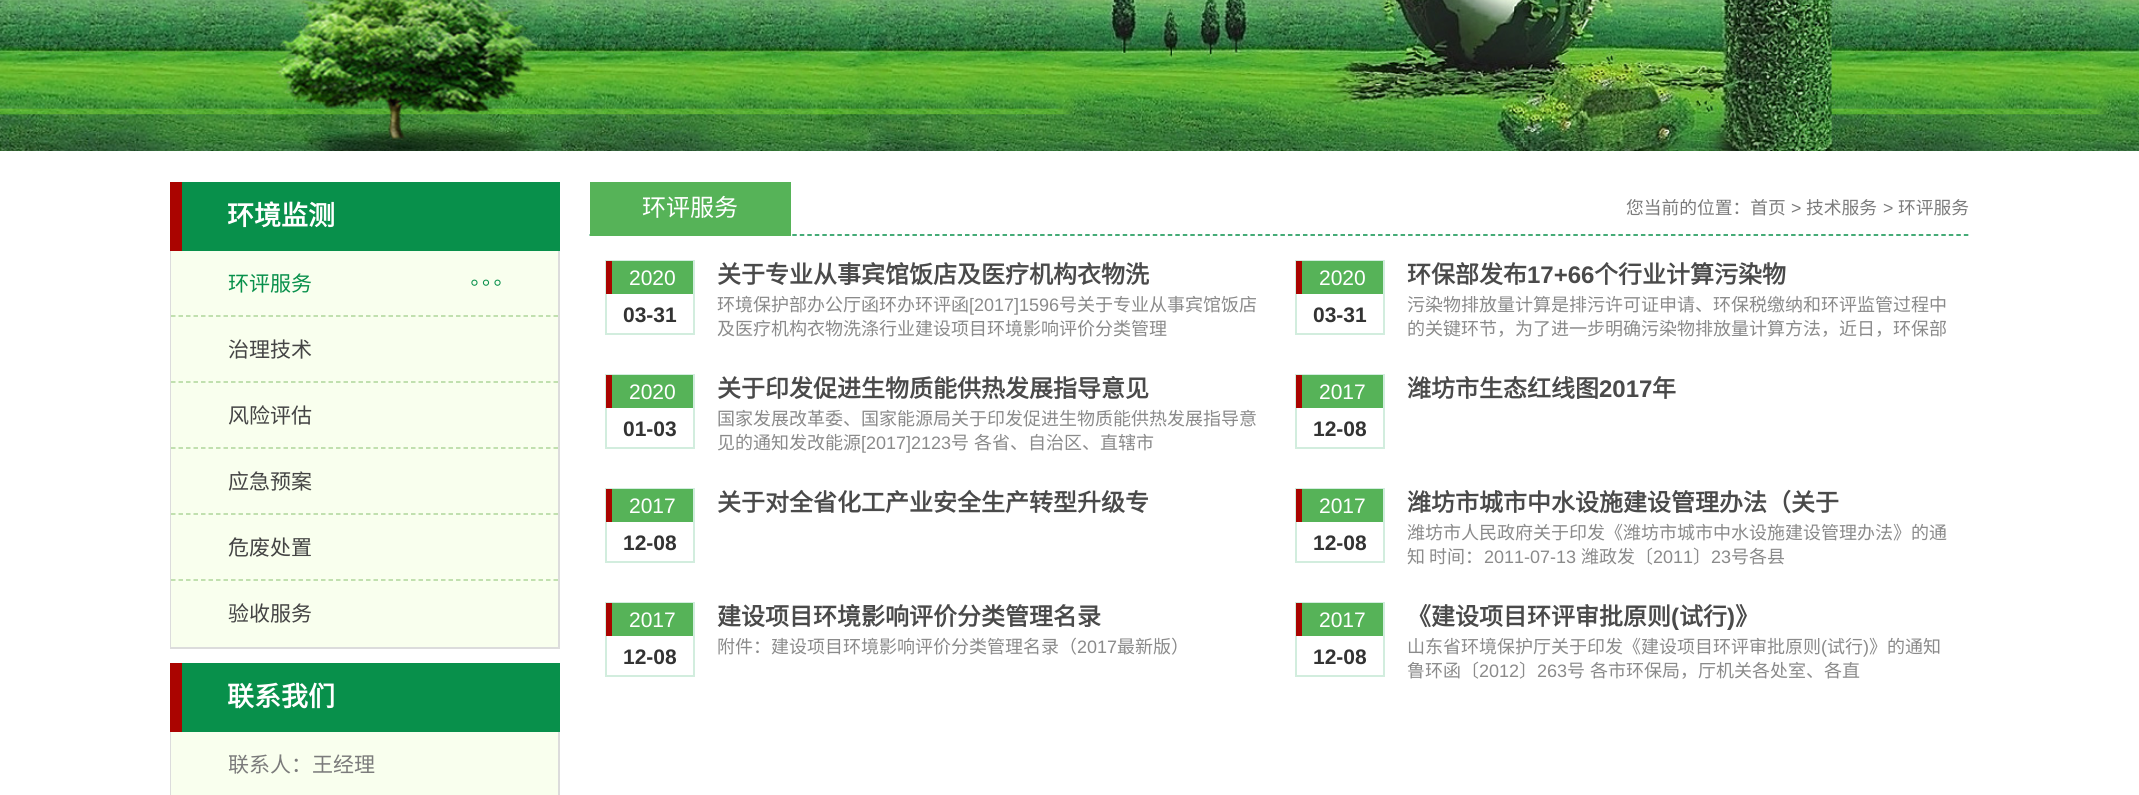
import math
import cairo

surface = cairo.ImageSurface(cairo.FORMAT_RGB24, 2139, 795)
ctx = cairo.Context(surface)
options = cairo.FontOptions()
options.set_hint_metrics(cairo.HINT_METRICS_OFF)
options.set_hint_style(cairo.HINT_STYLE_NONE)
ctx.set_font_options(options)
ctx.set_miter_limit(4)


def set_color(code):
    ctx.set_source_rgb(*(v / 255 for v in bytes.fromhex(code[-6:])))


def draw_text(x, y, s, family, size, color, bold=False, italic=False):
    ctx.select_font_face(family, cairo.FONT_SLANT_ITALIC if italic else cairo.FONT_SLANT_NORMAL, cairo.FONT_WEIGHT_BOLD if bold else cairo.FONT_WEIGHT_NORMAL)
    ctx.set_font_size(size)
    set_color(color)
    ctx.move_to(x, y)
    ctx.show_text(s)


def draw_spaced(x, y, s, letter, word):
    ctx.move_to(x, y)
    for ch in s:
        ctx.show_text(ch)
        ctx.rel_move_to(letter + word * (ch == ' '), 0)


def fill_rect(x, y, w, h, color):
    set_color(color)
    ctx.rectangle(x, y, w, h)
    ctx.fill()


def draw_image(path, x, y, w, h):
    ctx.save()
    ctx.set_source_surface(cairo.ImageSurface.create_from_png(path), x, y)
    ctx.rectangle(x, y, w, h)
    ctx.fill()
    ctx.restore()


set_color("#ffffff")
ctx.paint()
draw_image("assets/img1.png", 0, 0, 2139, 151)
fill_rect(182, 182, 378, 69, "#08904b")
fill_rect(170, 182, 12, 69, "#aa0400")
draw_text(227, 225, "环境监测", "Noto Sans CJK SC", 27, "#ffffff", bold=True)
fill_rect(558, 251, 2, 397, "#dcdcdc")
fill_rect(170, 647, 390, 2, "#dcdcdc")
fill_rect(170, 251, 2, 397, "#dcdcdc")
fill_rect(171, 251, 387, 396, "#f9ffee")
ctx.new_path()
ctx.move_to(171, 316)
ctx.line_to(558, 316)
set_color("#aed69a")
ctx.set_line_width(1.5)
ctx.set_dash([4.5, 3])
ctx.stroke()
draw_text(228, 291, "环评服务", "Noto Sans CJK SC", 21, "#08904b")
draw_image("assets/img2.png", 471, 279, 30, 7)
ctx.new_path()
ctx.move_to(171, 382)
ctx.line_to(558, 382)
set_color("#aed69a")
ctx.stroke()
draw_text(228, 357, "治理技术", "Noto Sans CJK SC", 21, "#444444")
ctx.new_path()
ctx.move_to(171, 448)
ctx.line_to(558, 448)
set_color("#aed69a")
ctx.stroke()
draw_text(228, 423, "风险评估", "Noto Sans CJK SC", 21, "#444444")
ctx.new_path()
ctx.move_to(171, 514)
ctx.line_to(558, 514)
set_color("#aed69a")
ctx.stroke()
draw_text(228, 489, "应急预案", "Noto Sans CJK SC", 21, "#444444")
ctx.new_path()
ctx.move_to(171, 580)
ctx.line_to(558, 580)
set_color("#aed69a")
ctx.stroke()
draw_text(228, 555, "危废处置", "Noto Sans CJK SC", 21, "#444444")
draw_text(228, 621, "验收服务", "Noto Sans CJK SC", 21, "#444444")
fill_rect(182, 663, 378, 69, "#08904b")
fill_rect(170, 663, 12, 69, "#aa0400")
draw_text(227, 706, "联系我们", "Noto Sans CJK SC", 27, "#ffffff", bold=True)
fill_rect(558, 732, 2, 63, "#dcdcdc")
fill_rect(170, 732, 1, 63, "#dcdcdc")
fill_rect(171, 732, 387, 63, "#f9ffee")
draw_text(228, 772, "联系人：王经理", "Noto Sans CJK SC", 21, "#7b7b7b")
ctx.new_path()
ctx.move_to(589.5, 235)
ctx.line_to(1969.5, 235)
set_color("#08904b")
ctx.set_dash([4.5, 3.01])
ctx.stroke()
fill_rect(590, 182, 201, 54, "#56b358")
draw_text(642, 216, "环评服务", "Noto Sans CJK SC", 24, "#ffffff")
draw_text(1626, 214, "您当前的位置：首页", "Noto Sans CJK SC", 17.75, "#7b7b7b")
draw_text(1791, 214, ">", "Liberation Sans", 17.75, "#7b7b7b")
draw_text(1806, 214, "技术服务", "Noto Sans CJK SC", 17.75, "#7b7b7b")
draw_text(1883, 214, ">", "Liberation Sans", 17.75, "#7b7b7b")
draw_text(1898, 214, "环评服务", "Noto Sans CJK SC", 17.75, "#7b7b7b")
ctx.rectangle(606, 261, 88, 73)
set_color("#d2edde")
ctx.set_line_width(2)
ctx.set_dash([])
ctx.stroke()
fill_rect(606, 261, 6, 33, "#aa0400")
fill_rect(612, 261, 81, 33, "#56b358")
draw_text(629, 285, "2020", "Liberation Sans", 21, "#ffffff")
draw_text(623, 322, "03-31", "Liberation Sans", 21, "#333333", bold=True)
draw_text(717, 283, "关于专业从事宾馆饭店及医疗机构衣物洗", "Noto Sans CJK SC", 24, "#4a4a4a", bold=True)
draw_text(717, 311, "环境保护部办公厅函环办环评函", "Noto Sans CJK SC", 18, "#8a8a8a")
draw_text(969, 311, "[2017]1596", "Liberation Sans", 18, "#8a8a8a")
draw_text(1059, 311, "号关于专业从事宾馆饭店", "Noto Sans CJK SC", 18, "#8a8a8a")
draw_text(717, 335, "及医疗机构衣物洗涤行业建设项目环境影响评价分类管理", "Noto Sans CJK SC", 18, "#8a8a8a")
ctx.rectangle(1296, 261, 88, 73)
set_color("#d2edde")
ctx.stroke()
fill_rect(1296, 261, 6, 33, "#aa0400")
fill_rect(1302, 261, 81, 33, "#56b358")
draw_text(1319, 285, "2020", "Liberation Sans", 21, "#ffffff")
draw_text(1313, 322, "03-31", "Liberation Sans", 21, "#333333", bold=True)
draw_text(1407, 283, "环保部发布", "Noto Sans CJK SC", 24, "#4a4a4a", bold=True)
draw_text(1527, 283, "17+66", "Liberation Sans", 24, "#4a4a4a", bold=True)
draw_text(1594, 283, "个行业计算污染物", "Noto Sans CJK SC", 24, "#4a4a4a", bold=True)
draw_text(1407, 311, "污染物排放量计算是排污许可证申请、环保税缴纳和环评监管过程中", "Noto Sans CJK SC", 18, "#8a8a8a")
draw_text(1407, 335, "的关键环节，为了进一步明确污染物排放量计算方法，近日，环保部", "Noto Sans CJK SC", 18, "#8a8a8a")
ctx.rectangle(606, 375, 88, 73)
set_color("#d2edde")
ctx.stroke()
fill_rect(606, 375, 6, 33, "#aa0400")
fill_rect(612, 375, 81, 33, "#56b358")
draw_text(629, 399, "2020", "Liberation Sans", 21, "#ffffff")
draw_text(623, 436, "01-03", "Liberation Sans", 21, "#333333", bold=True)
draw_text(717, 397, "关于印发促进生物质能供热发展指导意见", "Noto Sans CJK SC", 24, "#4a4a4a", bold=True)
draw_text(717, 425, "国家发展改革委、国家能源局关于印发促进生物质能供热发展指导意", "Noto Sans CJK SC", 18, "#8a8a8a")
draw_text(717, 449, "见的通知发改能源", "Noto Sans CJK SC", 18, "#8a8a8a")
draw_text(861, 449, "[2017]2123", "Liberation Sans", 18, "#8a8a8a")
ctx.select_font_face("Noto Sans CJK SC")
draw_spaced(951, 449, "号 各省、自治区、直辖市", 0, 1)
ctx.rectangle(1296, 375, 88, 73)
set_color("#d2edde")
ctx.stroke()
fill_rect(1296, 375, 6, 33, "#aa0400")
fill_rect(1302, 375, 81, 33, "#56b358")
draw_text(1319, 399, "2017", "Liberation Sans", 21, "#ffffff")
draw_text(1313, 436, "12-08", "Liberation Sans", 21, "#333333", bold=True)
draw_text(1407, 397, "潍坊市生态红线图", "Noto Sans CJK SC", 24, "#4a4a4a", bold=True)
draw_text(1599, 397, "2017", "Liberation Sans", 24, "#4a4a4a", bold=True)
draw_text(1652, 397, "年", "Noto Sans CJK SC", 24, "#4a4a4a", bold=True)
ctx.rectangle(606, 489, 88, 73)
set_color("#d2edde")
ctx.stroke()
fill_rect(606, 489, 6, 33, "#aa0400")
fill_rect(612, 489, 81, 33, "#56b358")
draw_text(629, 513, "2017", "Liberation Sans", 21, "#ffffff")
draw_text(623, 550, "12-08", "Liberation Sans", 21, "#333333", bold=True)
draw_text(717, 511, "关于对全省化工产业安全生产转型升级专", "Noto Sans CJK SC", 24, "#4a4a4a", bold=True)
ctx.rectangle(1296, 489, 88, 73)
set_color("#d2edde")
ctx.stroke()
fill_rect(1296, 489, 6, 33, "#aa0400")
fill_rect(1302, 489, 81, 33, "#56b358")
draw_text(1319, 513, "2017", "Liberation Sans", 21, "#ffffff")
draw_text(1313, 550, "12-08", "Liberation Sans", 21, "#333333", bold=True)
draw_text(1407, 511, "潍坊市城市中水设施建设管理办法（关于", "Noto Sans CJK SC", 24, "#4a4a4a", bold=True)
draw_text(1407, 539, "潍坊市人民政府关于印发《潍坊市城市中水设施建设管理办法》的通", "Noto Sans CJK SC", 18, "#8a8a8a")
draw_text(1407, 563, "知 时间：", "Noto Sans CJK SC", 18, "#8a8a8a")
draw_text(1484, 563, "2011-07-13", "Liberation Sans", 18, "#8a8a8a")
draw_text(1581, 563, "潍政发〔", "Noto Sans CJK SC", 18, "#8a8a8a")
draw_text(1653, 563, "2011", "Liberation Sans", 18, "#8a8a8a")
draw_text(1693, 563, "〕", "Noto Sans CJK SC", 18, "#8a8a8a")
draw_text(1711, 563, "23", "Liberation Sans", 18, "#8a8a8a")
draw_text(1731, 563, "号各县", "Noto Sans CJK SC", 18, "#8a8a8a")
ctx.rectangle(606, 603, 88, 73)
set_color("#d2edde")
ctx.stroke()
fill_rect(606, 603, 6, 33, "#aa0400")
fill_rect(612, 603, 81, 33, "#56b358")
draw_text(629, 627, "2017", "Liberation Sans", 21, "#ffffff")
draw_text(623, 664, "12-08", "Liberation Sans", 21, "#333333", bold=True)
draw_text(717, 625, "建设项目环境影响评价分类管理名录", "Noto Sans CJK SC", 24, "#4a4a4a", bold=True)
draw_text(717, 653, "附件：建设项目环境影响评价分类管理名录（", "Noto Sans CJK SC", 18, "#8a8a8a")
draw_text(1077, 653, "2017", "Liberation Sans", 18, "#8a8a8a")
draw_text(1117, 653, "最新版）", "Noto Sans CJK SC", 18, "#8a8a8a")
ctx.rectangle(1296, 603, 88, 73)
set_color("#d2edde")
ctx.stroke()
fill_rect(1296, 603, 6, 33, "#aa0400")
fill_rect(1302, 603, 81, 33, "#56b358")
draw_text(1319, 627, "2017", "Liberation Sans", 21, "#ffffff")
draw_text(1313, 664, "12-08", "Liberation Sans", 21, "#333333", bold=True)
draw_text(1407, 625, "《建设项目环评审批原则", "Noto Sans CJK SC", 24, "#4a4a4a", bold=True)
draw_text(1671, 625, "(", "Liberation Sans", 24, "#4a4a4a", bold=True)
draw_text(1679, 625, "试行", "Noto Sans CJK SC", 24, "#4a4a4a", bold=True)
draw_text(1727, 625, ")", "Liberation Sans", 24, "#4a4a4a", bold=True)
draw_text(1735, 625, "》", "Noto Sans CJK SC", 24, "#4a4a4a", bold=True)
draw_text(1407, 653, "山东省环境保护厅关于印发《建设项目环评审批原则", "Noto Sans CJK SC", 18, "#8a8a8a")
draw_text(1821, 653, "(", "Liberation Sans", 18, "#8a8a8a")
draw_text(1827, 653, "试行", "Noto Sans CJK SC", 18, "#8a8a8a")
draw_text(1863, 653, ")", "Liberation Sans", 18, "#8a8a8a")
draw_text(1869, 653, "》的通知", "Noto Sans CJK SC", 18, "#8a8a8a")
draw_text(1407, 677, "鲁环函〔", "Noto Sans CJK SC", 18, "#8a8a8a")
draw_text(1479, 677, "2012", "Liberation Sans", 18, "#8a8a8a")
draw_text(1519, 677, "〕", "Noto Sans CJK SC", 18, "#8a8a8a")
draw_text(1537, 677, "263", "Liberation Sans", 18, "#8a8a8a")
ctx.select_font_face("Noto Sans CJK SC")
draw_spaced(1567, 677, "号 各市环保局，厅机关各处室、各直", 0, 1)
surface.write_to_png("output.png")
